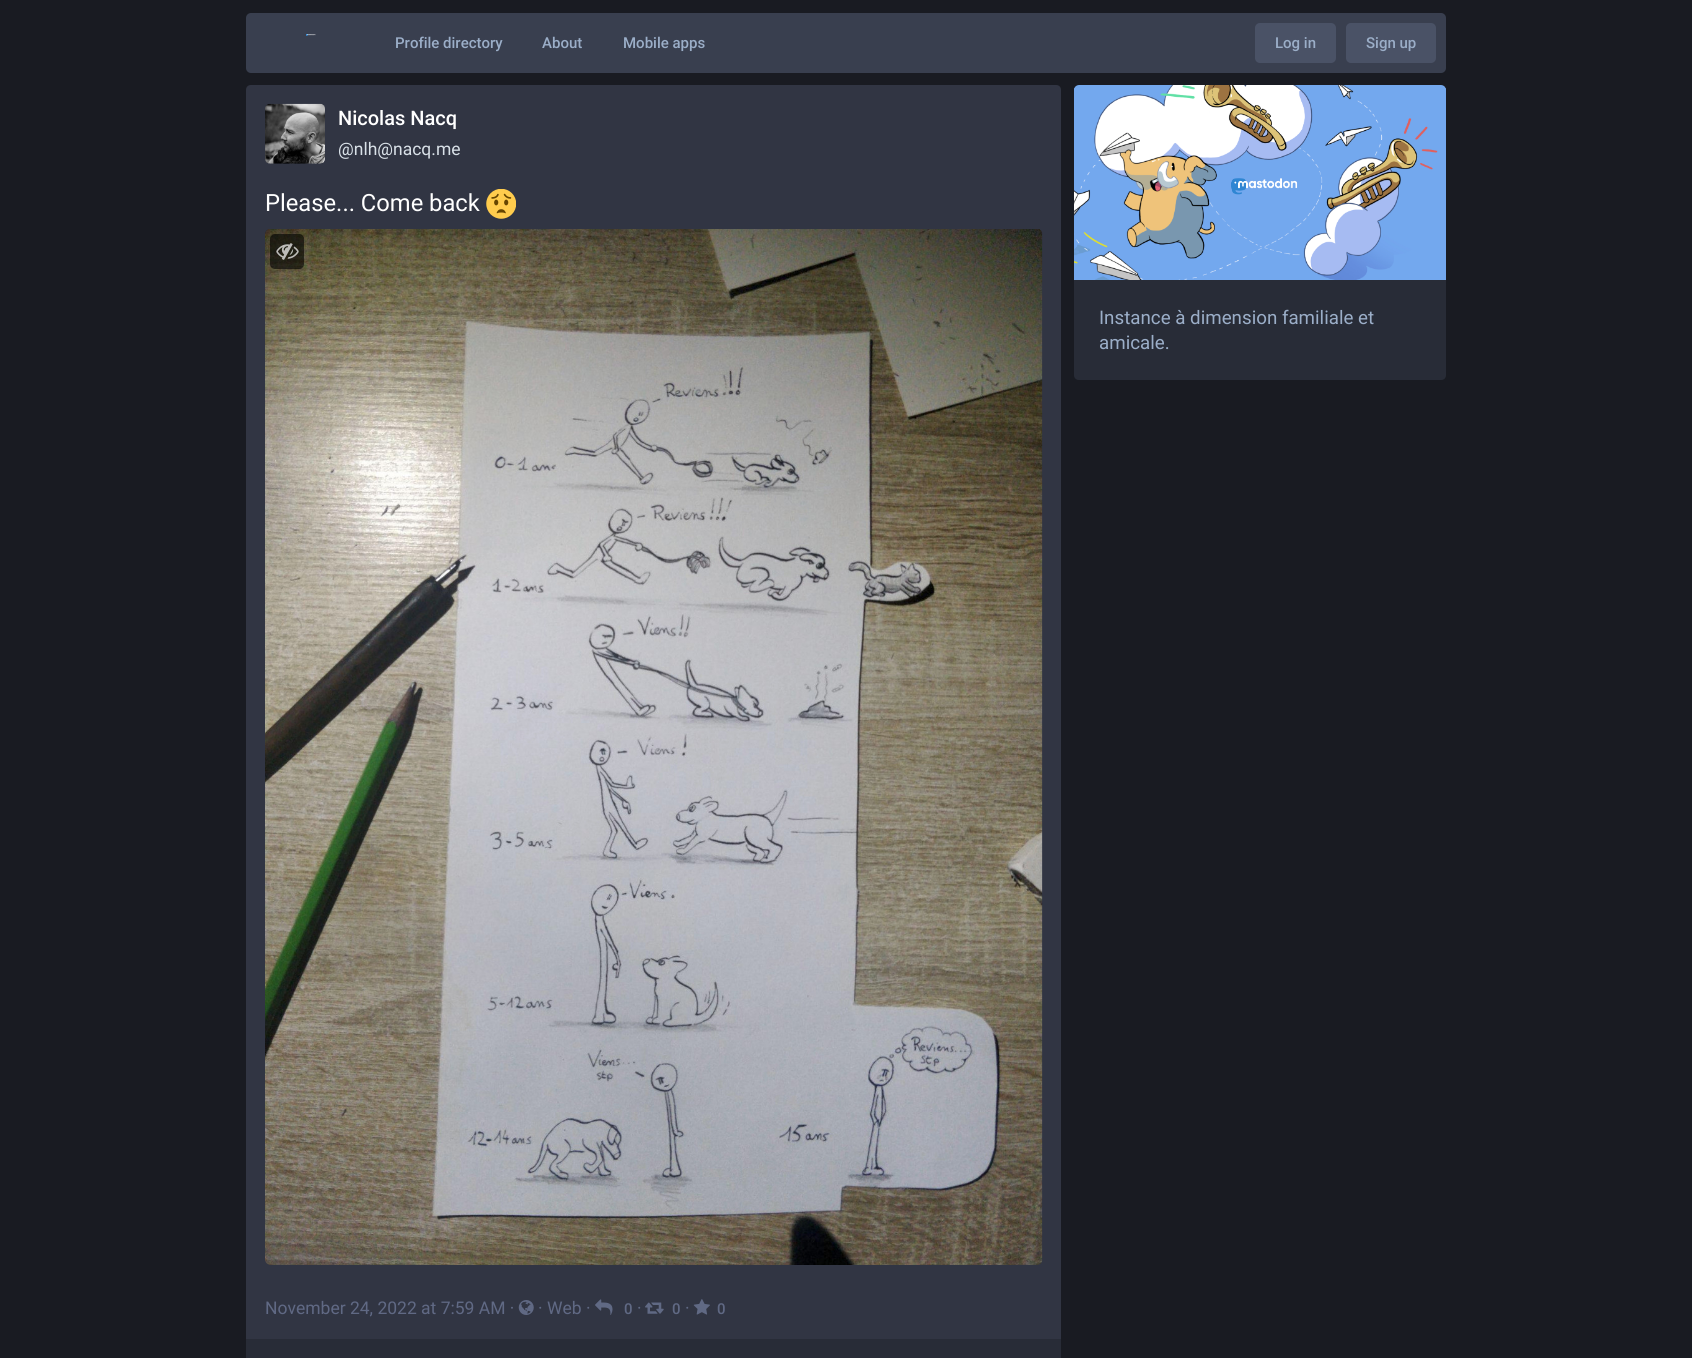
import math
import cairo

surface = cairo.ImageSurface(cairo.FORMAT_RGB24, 1692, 1358)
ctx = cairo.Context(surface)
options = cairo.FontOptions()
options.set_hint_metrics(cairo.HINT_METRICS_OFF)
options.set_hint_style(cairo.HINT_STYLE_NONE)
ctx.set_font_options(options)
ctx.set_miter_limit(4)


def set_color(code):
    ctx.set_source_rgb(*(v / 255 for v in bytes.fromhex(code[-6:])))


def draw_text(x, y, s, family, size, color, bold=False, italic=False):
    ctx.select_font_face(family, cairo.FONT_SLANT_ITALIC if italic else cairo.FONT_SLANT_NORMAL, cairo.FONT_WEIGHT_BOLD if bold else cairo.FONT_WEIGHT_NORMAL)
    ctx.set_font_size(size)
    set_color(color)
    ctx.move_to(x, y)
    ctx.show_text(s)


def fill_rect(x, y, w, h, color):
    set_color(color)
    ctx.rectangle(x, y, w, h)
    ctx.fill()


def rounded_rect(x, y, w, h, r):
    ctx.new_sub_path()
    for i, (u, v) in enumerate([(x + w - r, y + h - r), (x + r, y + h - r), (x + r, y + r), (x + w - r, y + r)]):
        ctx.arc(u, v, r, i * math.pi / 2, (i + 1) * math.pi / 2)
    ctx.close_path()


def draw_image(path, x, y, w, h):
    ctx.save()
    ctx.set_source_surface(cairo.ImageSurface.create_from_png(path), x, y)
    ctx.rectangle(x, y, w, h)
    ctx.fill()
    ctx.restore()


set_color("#191b22")
ctx.paint()
set_color("#393f4f")
rounded_rect(246, 13, 1200, 60, 5)
ctx.fill()
draw_image("assets/img1.png", 306, 34, 10, 2)
draw_text(395, 48, "Profile directory", "Roboto Medium", 15, "#9baec8")
draw_text(542, 48, "About", "Roboto Medium", 15, "#9baec8")
draw_text(623, 48, "Mobile apps", "Roboto Medium", 15, "#9baec8")
set_color("#4a5266")
rounded_rect(1255, 23, 81, 40, 5)
ctx.fill()
draw_text(1275, 48, "Log in", "Roboto Medium", 15, "#9baec8")
set_color("#4a5266")
rounded_rect(1346, 23, 90, 40, 5)
ctx.fill()
draw_text(1366, 48, "Sign up", "Roboto Medium", 15, "#9baec8")
set_color("#313543")
ctx.new_path()
ctx.move_to(251, 85)
ctx.line_to(1056, 85)
ctx.curve_to(1059, 85, 1061, 87, 1061, 90)
ctx.line_to(1061, 1339)
ctx.line_to(246, 1339)
ctx.line_to(246, 90)
ctx.curve_to(246, 87, 248, 85, 251, 85)
ctx.close_path()
ctx.fill()
draw_image("assets/img2.png", 265, 103, 60, 61)
draw_text(338, 125, "Nicolas Nacq", "Roboto Medium", 20, "#ffffff")
draw_text(338, 155, "@nlh@nacq.me", "Roboto", 17.5, "#d9e1e8")
draw_text(265, 211, "Please... Come back", "Roboto", 23.75, "#ffffff")
draw_image("assets/img3.png", 486, 189, 30, 30)
draw_image("assets/img4.png", 265, 229, 778, 1036)
ctx.set_source_rgba(0, 0, 0, 0.6)
rounded_rect(270, 234, 34, 35, 5)
ctx.fill()
draw_image("assets/img5.png", 276, 243, 23, 17)
draw_text(265, 1314, "November 24, 2022 at 7:59 AM ·", "Roboto", 17.5, "#606984")
draw_image("assets/img6.png", 518, 1300, 16, 15)
draw_text(538, 1314, "· Web ·", "Roboto", 17.5, "#606984")
draw_image("assets/img7.png", 595, 1299, 18, 16)
draw_text(624, 1314, "0", "Roboto Medium", 15, "#606984")
draw_text(637, 1314, "·", "Roboto", 17.5, "#606984")
draw_image("assets/img8.png", 645, 1302, 19, 12)
draw_text(672, 1314, "0", "Roboto Medium", 15, "#606984")
draw_text(685, 1314, "·", "Roboto", 17.5, "#606984")
draw_image("assets/img9.png", 693, 1299, 17, 16)
draw_text(717, 1314, "0", "Roboto Medium", 15, "#606984")
fill_rect(246, 1339, 815, 19, "#282c37")
draw_image("assets/img10.png", 1074, 85, 372, 195)
ctx.new_path()
ctx.move_to(1074, 280)
ctx.line_to(1446, 280)
ctx.line_to(1446, 375)
ctx.curve_to(1446, 378, 1444, 380, 1441, 380)
ctx.line_to(1079, 380)
ctx.curve_to(1076, 380, 1074, 378, 1074, 375)
ctx.close_path()
ctx.fill()
draw_text(1099, 324, "Instance à dimension familiale et", "Roboto", 18.75, "#9baec8")
draw_text(1099, 349, "amicale.", "Roboto", 18.75, "#9baec8")
surface.write_to_png("output.png")
